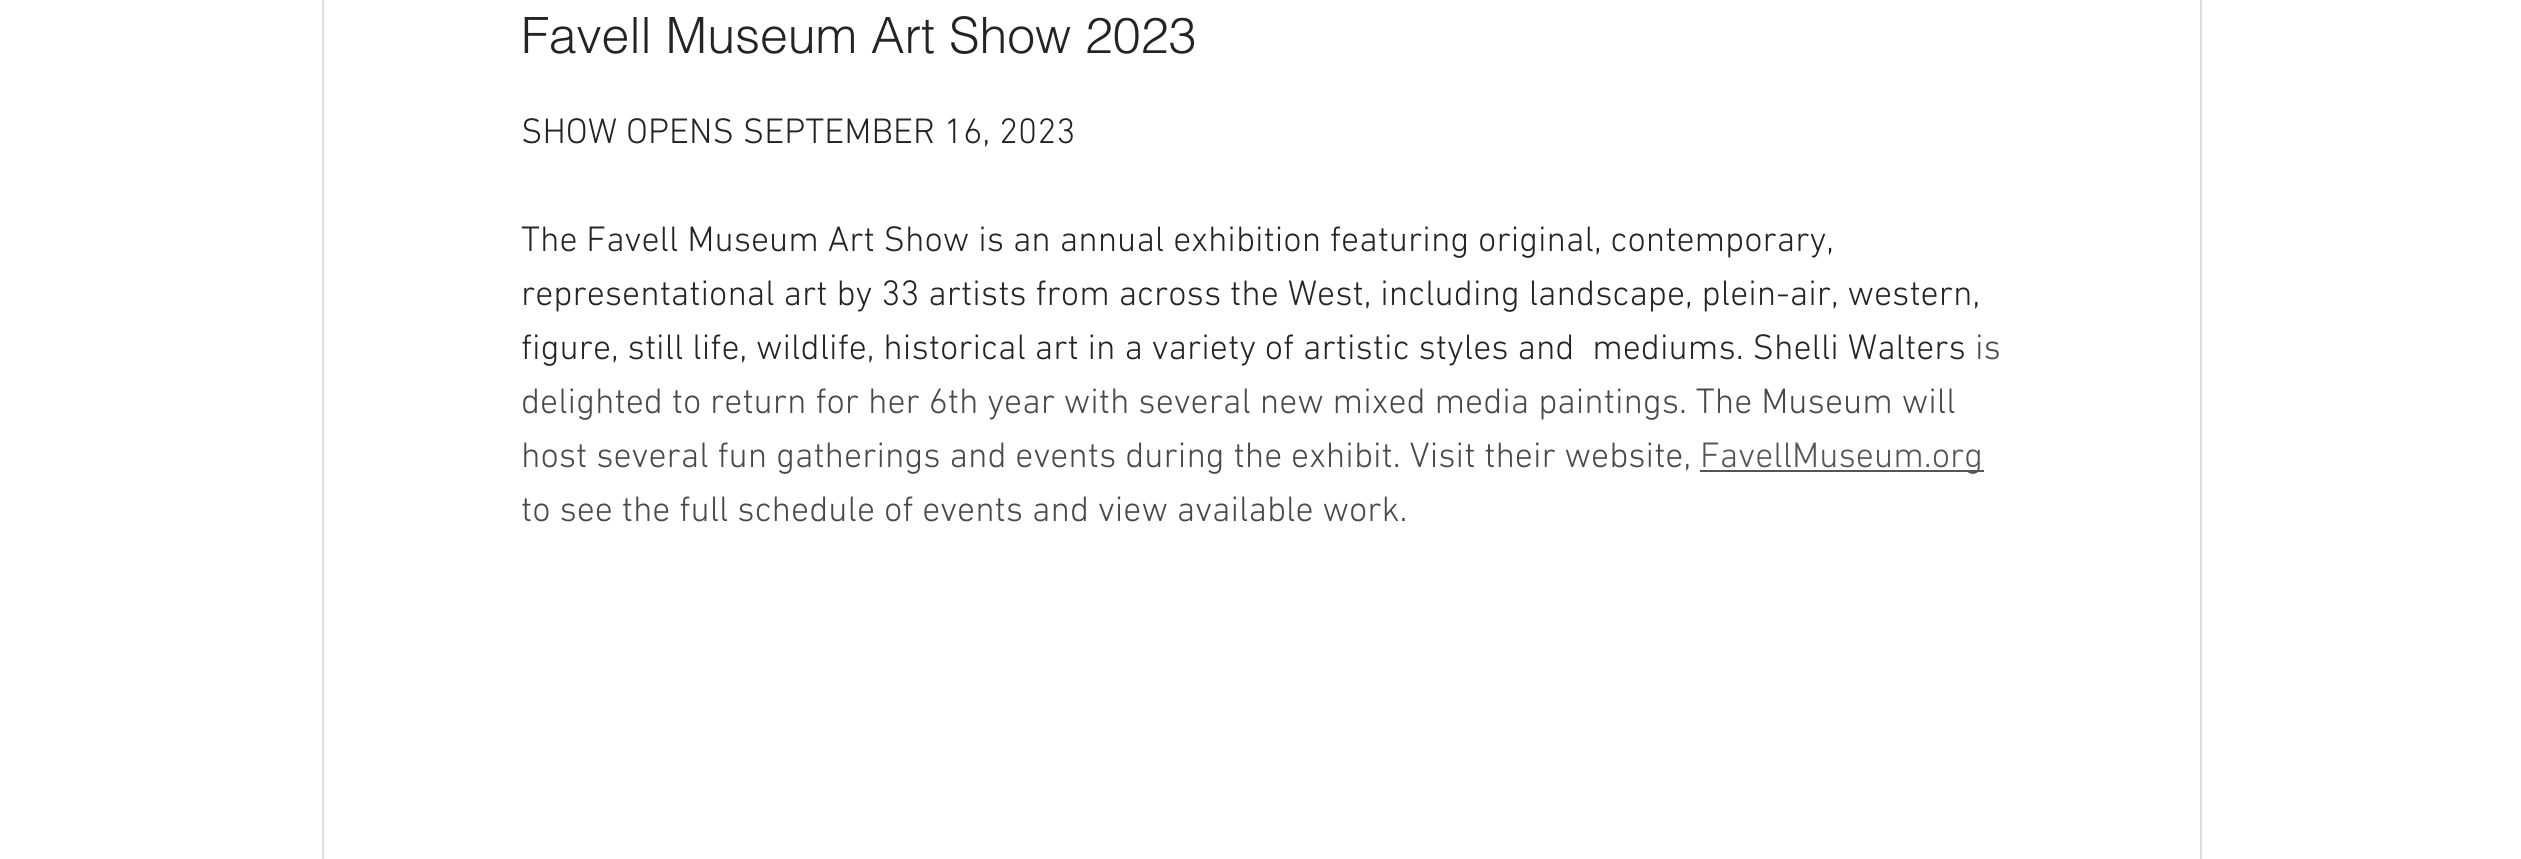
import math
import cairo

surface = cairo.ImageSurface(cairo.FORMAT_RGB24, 2521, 859)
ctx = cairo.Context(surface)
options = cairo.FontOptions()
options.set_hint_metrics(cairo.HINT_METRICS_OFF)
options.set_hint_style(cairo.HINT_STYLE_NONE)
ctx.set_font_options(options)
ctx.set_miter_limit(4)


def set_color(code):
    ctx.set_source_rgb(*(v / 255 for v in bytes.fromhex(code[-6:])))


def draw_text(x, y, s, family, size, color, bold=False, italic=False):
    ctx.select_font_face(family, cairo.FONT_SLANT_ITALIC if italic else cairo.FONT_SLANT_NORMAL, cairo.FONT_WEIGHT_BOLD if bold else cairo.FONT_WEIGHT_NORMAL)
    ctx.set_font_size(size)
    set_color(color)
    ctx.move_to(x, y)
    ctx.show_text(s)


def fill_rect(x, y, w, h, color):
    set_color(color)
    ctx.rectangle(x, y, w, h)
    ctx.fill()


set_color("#ffffff")
ctx.paint()
ctx.rectangle(323, -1, 1878, 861)
set_color("#dddddd")
ctx.stroke()
draw_text(521, 53, "Favell Museum Art Show 2023", "helvetica Light", 50, "#242424")
draw_text(521, 143, "SHOW OPENS SEPTEMBER 16, 2023", "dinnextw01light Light", 36, "#242424")
draw_text(521, 251, "The Favell Museum Art Show is an annual exhibition featuring original, contemporary,", "dinnextw01light Light", 36, "#242424")
draw_text(521, 305, "representational art by 33 artists from across the West, including landscape, plein-air, western,", "dinnextw01light Light", 36, "#242424")
draw_text(521, 359, "figure, still life, wildlife, historical art in a variety of artistic styles and  mediums. Shelli Walters", "dinnextw01light Light", 36, "#242424")
draw_text(1975, 359, "is", "dinnextw01light Light", 36, "#494947")
draw_text(521, 413, "delighted to return for her 6th year with several new mixed media paintings. The Museum will", "dinnextw01light Light", 36, "#494947")
draw_text(521, 467, "host several fun gatherings and events during the exhibit. Visit their website,", "dinnextw01light Light", 36, "#494947")
fill_rect(1700, 470, 284, 2, "#555555")
draw_text(1700, 467, "FavellMuseum.org", "dinnextw01light Light", 36, "#555555")
draw_text(521, 521, "to see the full schedule of events and view available work.", "dinnextw01light Light", 36, "#494947")
surface.write_to_png("output.png")
